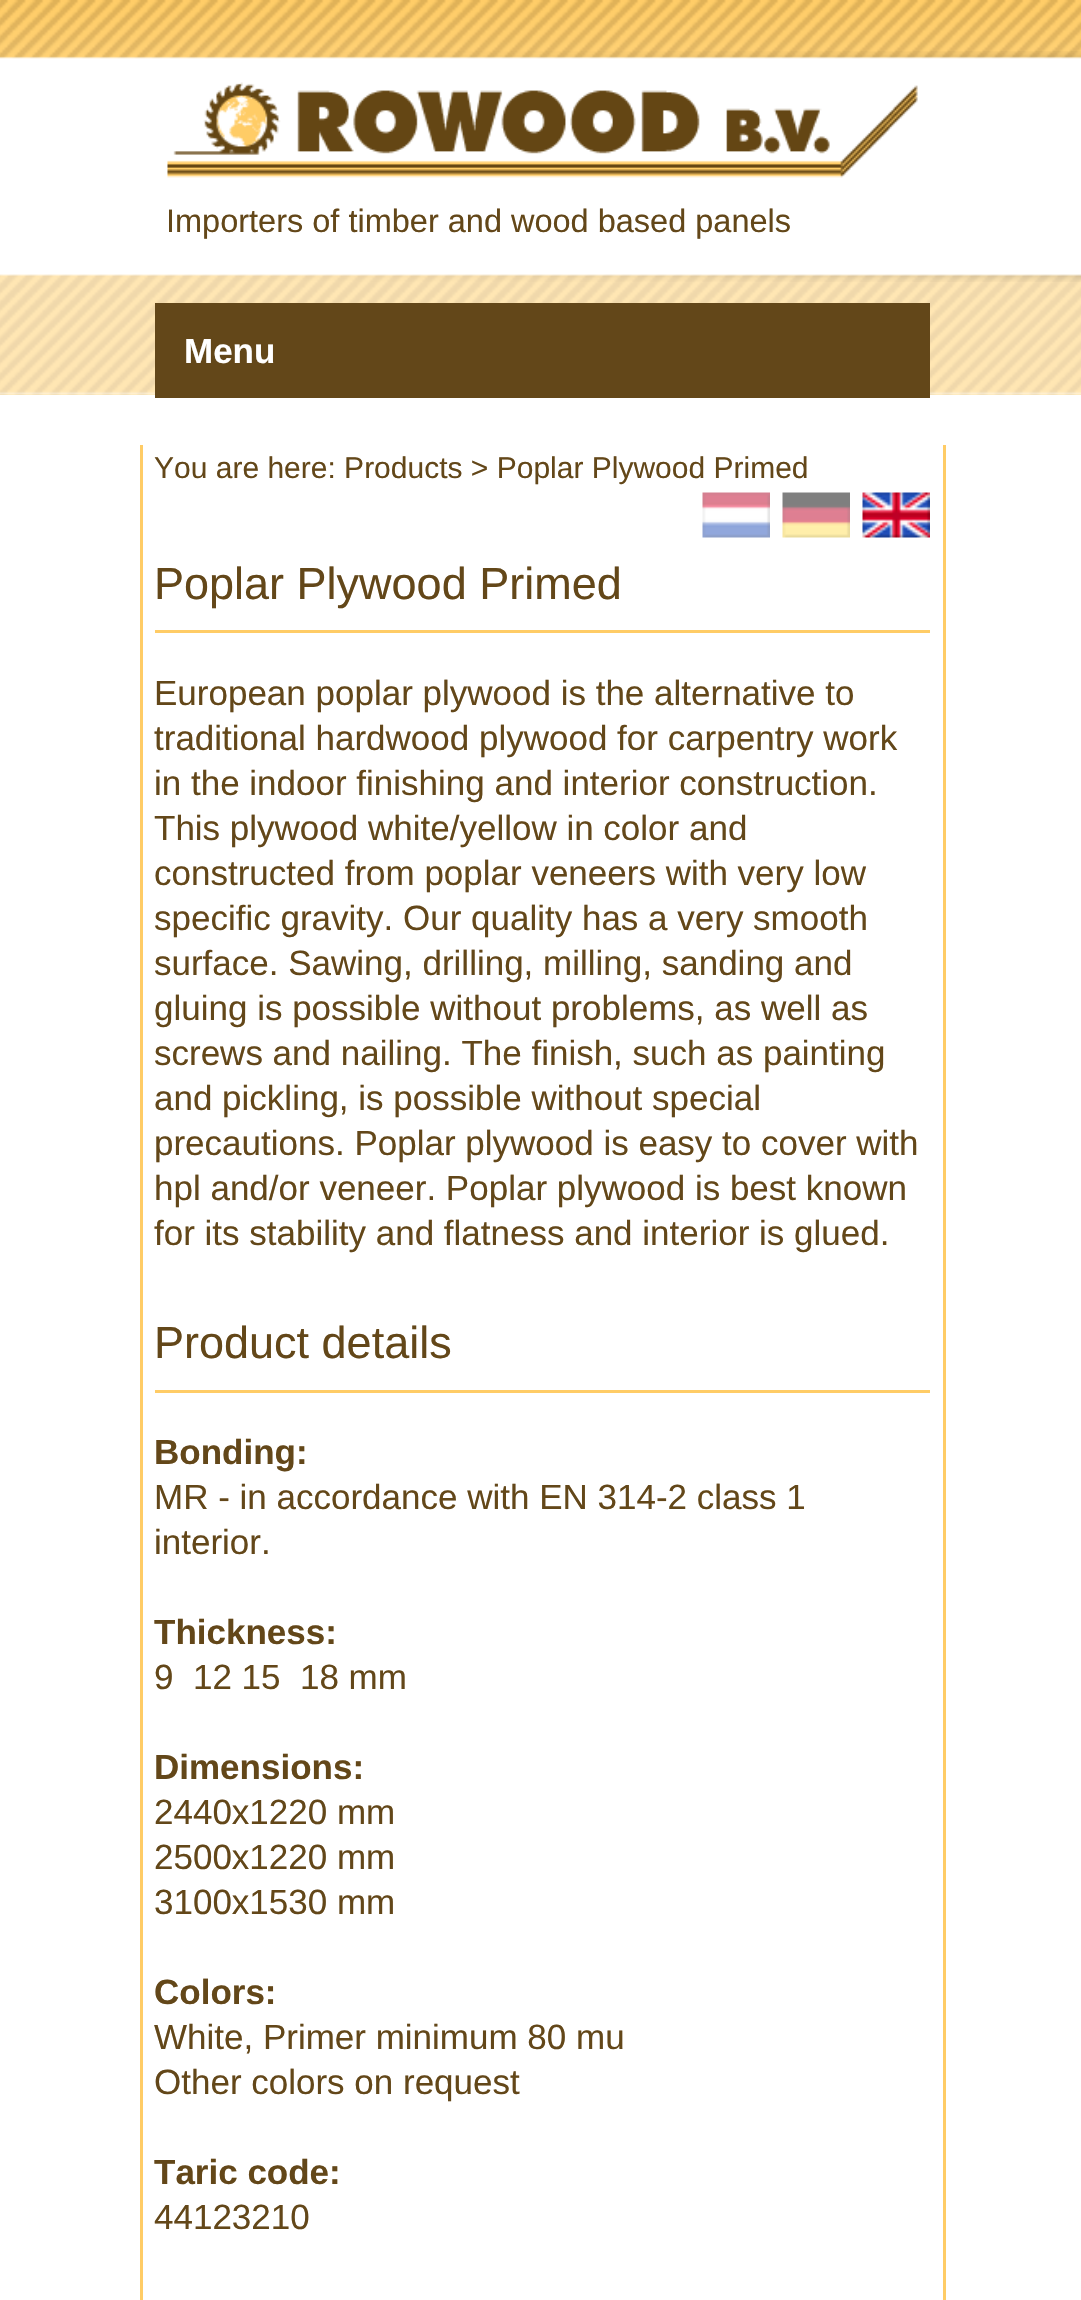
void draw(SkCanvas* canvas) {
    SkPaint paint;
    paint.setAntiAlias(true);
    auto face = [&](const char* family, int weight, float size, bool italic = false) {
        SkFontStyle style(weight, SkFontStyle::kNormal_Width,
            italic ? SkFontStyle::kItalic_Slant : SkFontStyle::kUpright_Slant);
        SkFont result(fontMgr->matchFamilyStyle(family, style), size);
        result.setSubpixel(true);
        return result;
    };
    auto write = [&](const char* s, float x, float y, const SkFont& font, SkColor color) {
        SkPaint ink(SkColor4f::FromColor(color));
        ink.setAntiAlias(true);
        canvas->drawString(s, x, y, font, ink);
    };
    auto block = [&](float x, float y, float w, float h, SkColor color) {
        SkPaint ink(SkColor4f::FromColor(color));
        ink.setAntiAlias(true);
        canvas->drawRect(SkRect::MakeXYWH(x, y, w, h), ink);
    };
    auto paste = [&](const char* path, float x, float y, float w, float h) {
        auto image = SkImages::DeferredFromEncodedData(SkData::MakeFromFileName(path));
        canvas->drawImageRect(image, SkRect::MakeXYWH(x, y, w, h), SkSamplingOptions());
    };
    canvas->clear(SK_ColorWHITE);
    paste("pic1.png", 0, 0, 1081, 395);
    paste("pic2.png", 0, 51, 1081, 231);
    paste("pic3.png", 167, 82, 751, 96);
    auto kFont1 = face("Liberation Sans", 400, 32.5f);
    write("Importers of timber and wood based panels", 166, 232, kFont1, SkColorSetRGB(99, 71, 25));
    block(155, 303, 775, 95, SkColorSetRGB(99, 71, 25));
    auto kFont2 = face("Liberation Sans", 700, 35);
    write("Menu", 184, 363, kFont2, SK_ColorWHITE);
    block(943, 445, 3, 1855, SkColorSetRGB(255, 204, 102));
    block(140, 445, 3, 1855, SkColorSetRGB(255, 204, 102));
    auto kFont3 = face("Liberation Sans", 400, 30);
    write("You are here: Products > Poplar Plywood Primed", 154, 478, kFont3, SkColorSetRGB(99, 71, 25));
    paste("pic4.png", 702, 492, 68, 46);
    paste("pic5.png", 782, 492, 68, 46);
    paste("pic6.png", 862, 492, 68, 46);
    block(155, 630, 775, 3, SkColorSetRGB(255, 204, 102));
    auto kFont4 = face("Liberation Sans", 400, 45);
    write("Poplar Plywood Primed", 154, 599, kFont4, SkColorSetRGB(99, 71, 25));
    auto kFont5 = face("Liberation Sans", 400, 35);
    write("European poplar plywood is the alternative to", 154, 705, kFont5, SkColorSetRGB(99, 71, 25));
    write("traditional hardwood plywood for carpentry work", 154, 750, kFont5, SkColorSetRGB(99, 71, 25));
    write("in the indoor finishing and interior construction.", 154, 795, kFont5, SkColorSetRGB(99, 71, 25));
    write("This plywood white/yellow in color and", 154, 840, kFont5, SkColorSetRGB(99, 71, 25));
    write("constructed from poplar veneers with very low", 154, 885, kFont5, SkColorSetRGB(99, 71, 25));
    write("specific gravity. Our quality has a very smooth", 154, 930, kFont5, SkColorSetRGB(99, 71, 25));
    write("surface. Sawing, drilling, milling, sanding and", 154, 975, kFont5, SkColorSetRGB(99, 71, 25));
    write("gluing is possible without problems, as well as", 154, 1020, kFont5, SkColorSetRGB(99, 71, 25));
    write("screws and nailing. The finish, such as painting", 154, 1065, kFont5, SkColorSetRGB(99, 71, 25));
    write("and pickling, is possible without special", 154, 1110, kFont5, SkColorSetRGB(99, 71, 25));
    write("precautions. Poplar plywood is easy to cover with", 154, 1155, kFont5, SkColorSetRGB(99, 71, 25));
    write("hpl and/or veneer. Poplar plywood is best known", 154, 1200, kFont5, SkColorSetRGB(99, 71, 25));
    write("for its stability and flatness and interior is glued.", 154, 1245, kFont5, SkColorSetRGB(99, 71, 25));
    block(155, 1390, 775, 3, SkColorSetRGB(255, 204, 102));
    write("Product details", 154, 1358, kFont4, SkColorSetRGB(99, 71, 25));
    write("Bonding:", 154, 1464, kFont2, SkColorSetRGB(99, 71, 25));
    write("MR - in accordance with EN 314-2 class 1", 154, 1509, kFont5, SkColorSetRGB(99, 71, 25));
    write("interior.", 154, 1554, kFont5, SkColorSetRGB(99, 71, 25));
    write("Thickness:", 154, 1644, kFont2, SkColorSetRGB(99, 71, 25));
    write("9  12 15  18 mm", 154, 1689, kFont5, SkColorSetRGB(99, 71, 25));
    write("Dimensions:", 154, 1779, kFont2, SkColorSetRGB(99, 71, 25));
    write("2440x1220 mm", 154, 1824, kFont5, SkColorSetRGB(99, 71, 25));
    write("2500x1220 mm", 154, 1869, kFont5, SkColorSetRGB(99, 71, 25));
    write("3100x1530 mm", 154, 1914, kFont5, SkColorSetRGB(99, 71, 25));
    write("Colors:", 154, 2004, kFont2, SkColorSetRGB(99, 71, 25));
    write("White, Primer minimum 80 mu", 154, 2049, kFont5, SkColorSetRGB(99, 71, 25));
    write("Other colors on request", 154, 2094, kFont5, SkColorSetRGB(99, 71, 25));
    write("Taric code:", 154, 2184, kFont2, SkColorSetRGB(99, 71, 25));
    write("44123210", 154, 2229, kFont5, SkColorSetRGB(99, 71, 25));
}
